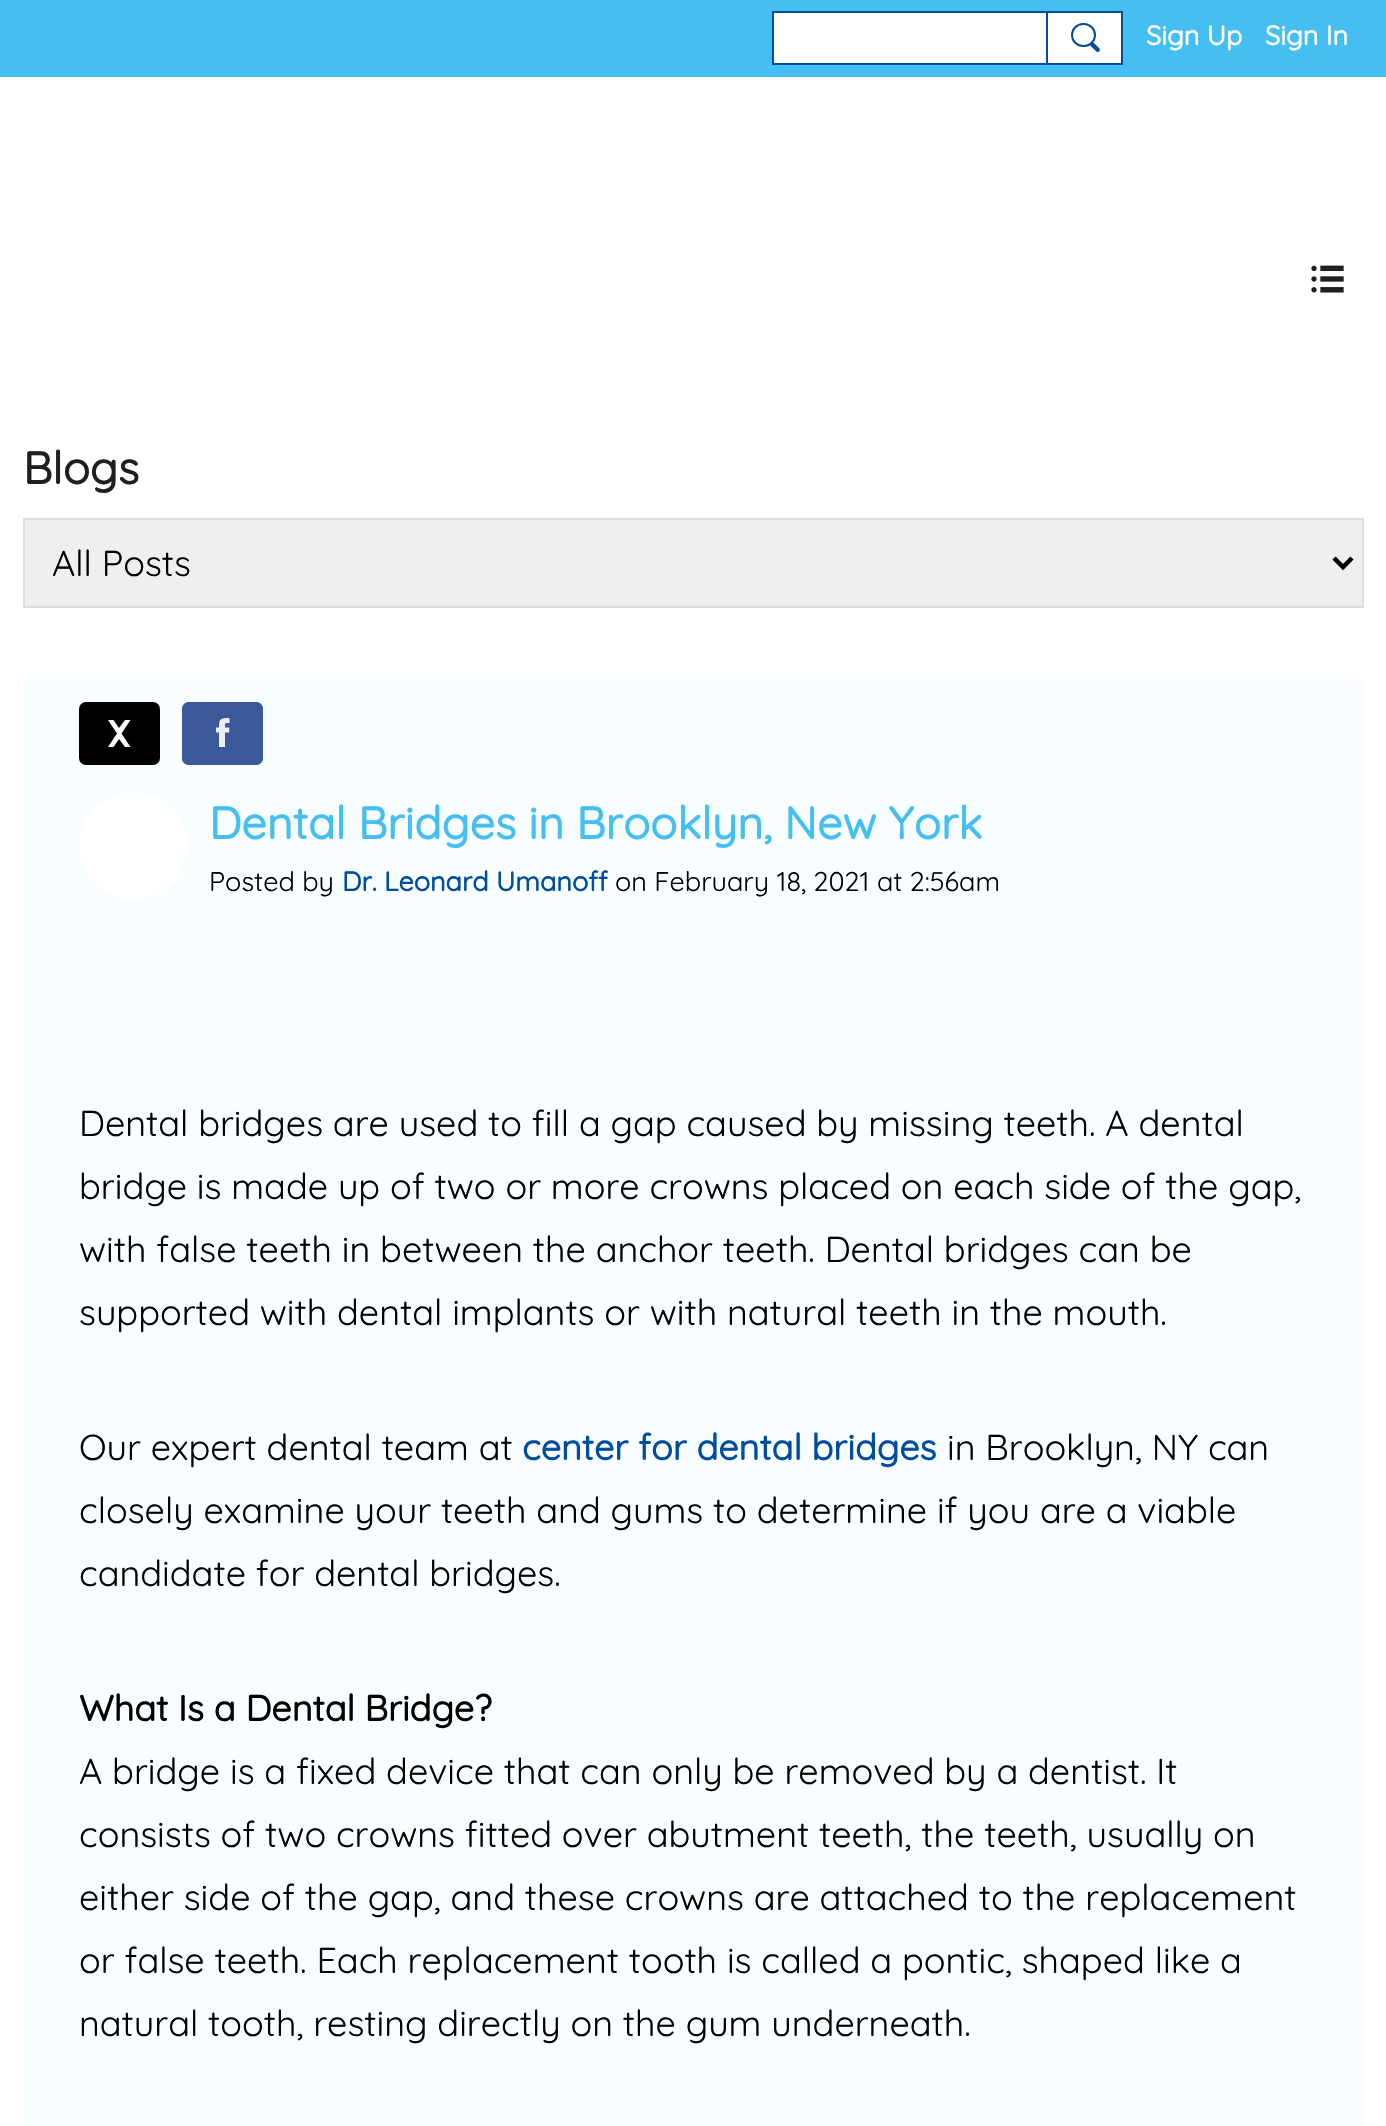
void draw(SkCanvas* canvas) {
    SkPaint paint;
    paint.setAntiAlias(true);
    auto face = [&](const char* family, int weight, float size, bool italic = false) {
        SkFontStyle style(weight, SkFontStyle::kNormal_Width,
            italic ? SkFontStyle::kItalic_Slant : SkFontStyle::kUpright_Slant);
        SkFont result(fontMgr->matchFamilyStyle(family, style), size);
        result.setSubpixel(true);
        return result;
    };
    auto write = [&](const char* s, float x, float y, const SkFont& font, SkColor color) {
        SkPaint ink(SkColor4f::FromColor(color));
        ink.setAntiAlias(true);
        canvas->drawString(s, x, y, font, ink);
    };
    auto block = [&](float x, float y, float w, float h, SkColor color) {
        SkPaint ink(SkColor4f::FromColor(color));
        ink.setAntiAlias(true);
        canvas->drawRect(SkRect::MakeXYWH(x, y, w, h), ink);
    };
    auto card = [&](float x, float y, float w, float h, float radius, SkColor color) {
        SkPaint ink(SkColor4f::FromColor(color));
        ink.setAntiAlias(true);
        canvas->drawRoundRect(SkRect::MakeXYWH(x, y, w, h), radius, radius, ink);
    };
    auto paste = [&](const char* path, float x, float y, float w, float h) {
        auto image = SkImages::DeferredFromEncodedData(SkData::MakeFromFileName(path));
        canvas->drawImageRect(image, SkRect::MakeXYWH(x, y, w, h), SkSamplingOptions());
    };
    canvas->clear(SK_ColorWHITE);
    block(0, 0, 1386, 77, SkColorSetRGB(69, 191, 242));
    block(774, 13, 272, 50, SK_ColorWHITE);
    paint.setStyle(SkPaint::kStroke_Style);
    paint.setStrokeWidth(2);
    paint.setColor(SkColorSetRGB(0, 77, 159));
    canvas->drawRect(SkRect::MakeXYWH(773, 12, 275, 52), paint);
    paint.setStyle(SkPaint::kFill_Style);
    paint.setColor(SK_ColorWHITE);
    canvas->drawRect(SkRect::MakeXYWH(1047, 12, 75, 52), paint);
    paint.setStyle(SkPaint::kStroke_Style);
    paint.setColor(SkColorSetRGB(0, 77, 159));
    canvas->drawRect(SkRect::MakeXYWH(1047, 12, 75, 52), paint);
    canvas->drawRoundRect(SkRect::MakeXYWH(1072, 24, 23, 22), 11, 11, paint);
    paint.setStyle(SkPaint::kFill_Style);
    canvas->drawPath(SkPathBuilder().moveTo(1094.5f, 43.5f).lineTo(1099.5f, 48.5f).cubicTo(1100, 49, 1100, 50, 1099.5f, 51).cubicTo(1098, 53.5f, 1095.5f, 51, 1094.5f, 49.5f).lineTo(1091, 46.5f).cubicTo(1089, 44.5f, 1092, 41, 1094.5f, 43.5f).close().detach(), paint);
    auto kFont1 = face("Quicksand", 700, 27);
    write("Sign Up", 1146, 45, kFont1, SK_ColorWHITE);
    write("Sign In", 1265, 45, kFont1, SK_ColorWHITE);
    paste("pic1.png", 1311, 265, 33, 28);
    auto kFont2 = face("Quicksand", 700, 45);
    write("Blogs", 23, 484, kFont2, SkColorSetRGB(31, 31, 31));
    paint.setColor(SkColorSetRGB(239, 239, 239));
    canvas->drawRect(SkRect::MakeXYWH(24, 519, 1339, 88), paint);
    paint.setStyle(SkPaint::kStroke_Style);
    paint.setColor(SkColorSetRGB(221, 221, 221));
    canvas->drawRect(SkRect::MakeXYWH(24, 519, 1339, 88), paint);
    paint.setStrokeWidth(4.5f);
    paint.setColor(SK_ColorBLACK);
    canvas->drawPath(SkPathBuilder().moveTo(1334, 558).lineTo(1343, 567).lineTo(1352, 558).detach(), paint);
    auto kFont3 = face("Quicksand", 300, 36);
    write("All Posts", 52, 576, kFont3, SK_ColorBLACK);
    block(23, 680, 1341, 1446, SkColorSetRGB(248, 253, 255));
    card(79, 702, 81, 63, 7, SK_ColorBLACK);
    paint.setStyle(SkPaint::kFill_Style);
    paint.setColor(SK_ColorWHITE);
    canvas->drawPath(SkPathBuilder(SkPathFillType::kEvenOdd).moveTo(108, 720).lineTo(117, 733.5f).lineTo(108, 747).lineTo(113.5f, 747).lineTo(119, 739).lineTo(125, 747).lineTo(130.5f, 747).lineTo(121.5f, 733.5f).lineTo(130.5f, 720).lineTo(125, 720).lineTo(119, 728).lineTo(113.5f, 720).close().detach(), paint);
    card(182, 702, 81, 63, 7, SkColorSetRGB(59, 89, 152));
    card(182, 702, 81, 63, 7, SkColorSetARGB(230, 59, 89, 152));
    paint.setColor(SkColorSetRGB(235, 238, 245));
    canvas->drawPath(SkPathBuilder().moveTo(225, 747).lineTo(225, 732.5f).lineTo(229, 732.5f).lineTo(229.5f, 727.5f).lineTo(225, 727.5f).cubicTo(225, 722.5f, 225, 723, 229.5f, 723).lineTo(229.5f, 718).cubicTo(221, 718, 219, 718, 219, 727.5f).lineTo(216, 727.5f).lineTo(216, 732.5f).lineTo(219, 732.5f).lineTo(219, 747).close().detach(), paint);
    paint.setColor(SK_ColorWHITE);
    canvas->drawCircle(133, 846, 54, paint);
    write("Dental Bridges in Brooklyn, New York", 209, 839, kFont2, SkColorSetRGB(69, 191, 242));
    auto kFont4 = face("Quicksand", 300, 27);
    write("Posted by", 209, 891, kFont4, SK_ColorBLACK);
    write("Dr. Leonard Umanoff", 342, 891, kFont1, SkColorSetRGB(0, 77, 159));
    write("on February 18, 2021 at 2:56am", 615, 891, kFont4, SK_ColorBLACK);
    write("Dental bridges are used to fill a gap caused by missing teeth. A dental", 79, 1136, kFont3, SK_ColorBLACK);
    write("bridge is made up of two or more crowns placed on each side of the gap,", 79, 1199, kFont3, SK_ColorBLACK);
    write("with false teeth in between the anchor teeth. Dental bridges can be", 79, 1262, kFont3, SK_ColorBLACK);
    write("supported with dental implants or with natural teeth in the mouth.", 79, 1325, kFont3, SK_ColorBLACK);
    write("Our expert dental team at", 79, 1460, kFont3, SK_ColorBLACK);
    auto kFont5 = face("Quicksand", 700, 36);
    write("center for dental bridges", 522, 1460, kFont5, SkColorSetRGB(0, 77, 159));
    write("in Brooklyn, NY can", 947, 1460, kFont3, SK_ColorBLACK);
    write("closely examine your teeth and gums to determine if you are a viable", 79, 1523, kFont3, SK_ColorBLACK);
    write("candidate for dental bridges.", 79, 1586, kFont3, SK_ColorBLACK);
    write("What Is a Dental Bridge?", 79, 1721, kFont5, SK_ColorBLACK);
    write("A bridge is a fixed device that can only be removed by a dentist. It", 79, 1784, kFont3, SK_ColorBLACK);
    write("consists of two crowns fitted over abutment teeth, the teeth, usually on", 79, 1847, kFont3, SK_ColorBLACK);
    write("either side of the gap, and these crowns are attached to the replacement", 79, 1910, kFont3, SK_ColorBLACK);
    write("or false teeth. Each replacement tooth is called a pontic, shaped like a", 79, 1973, kFont3, SK_ColorBLACK);
    write("natural tooth, resting directly on the gum underneath.", 79, 2036, kFont3, SK_ColorBLACK);
}
